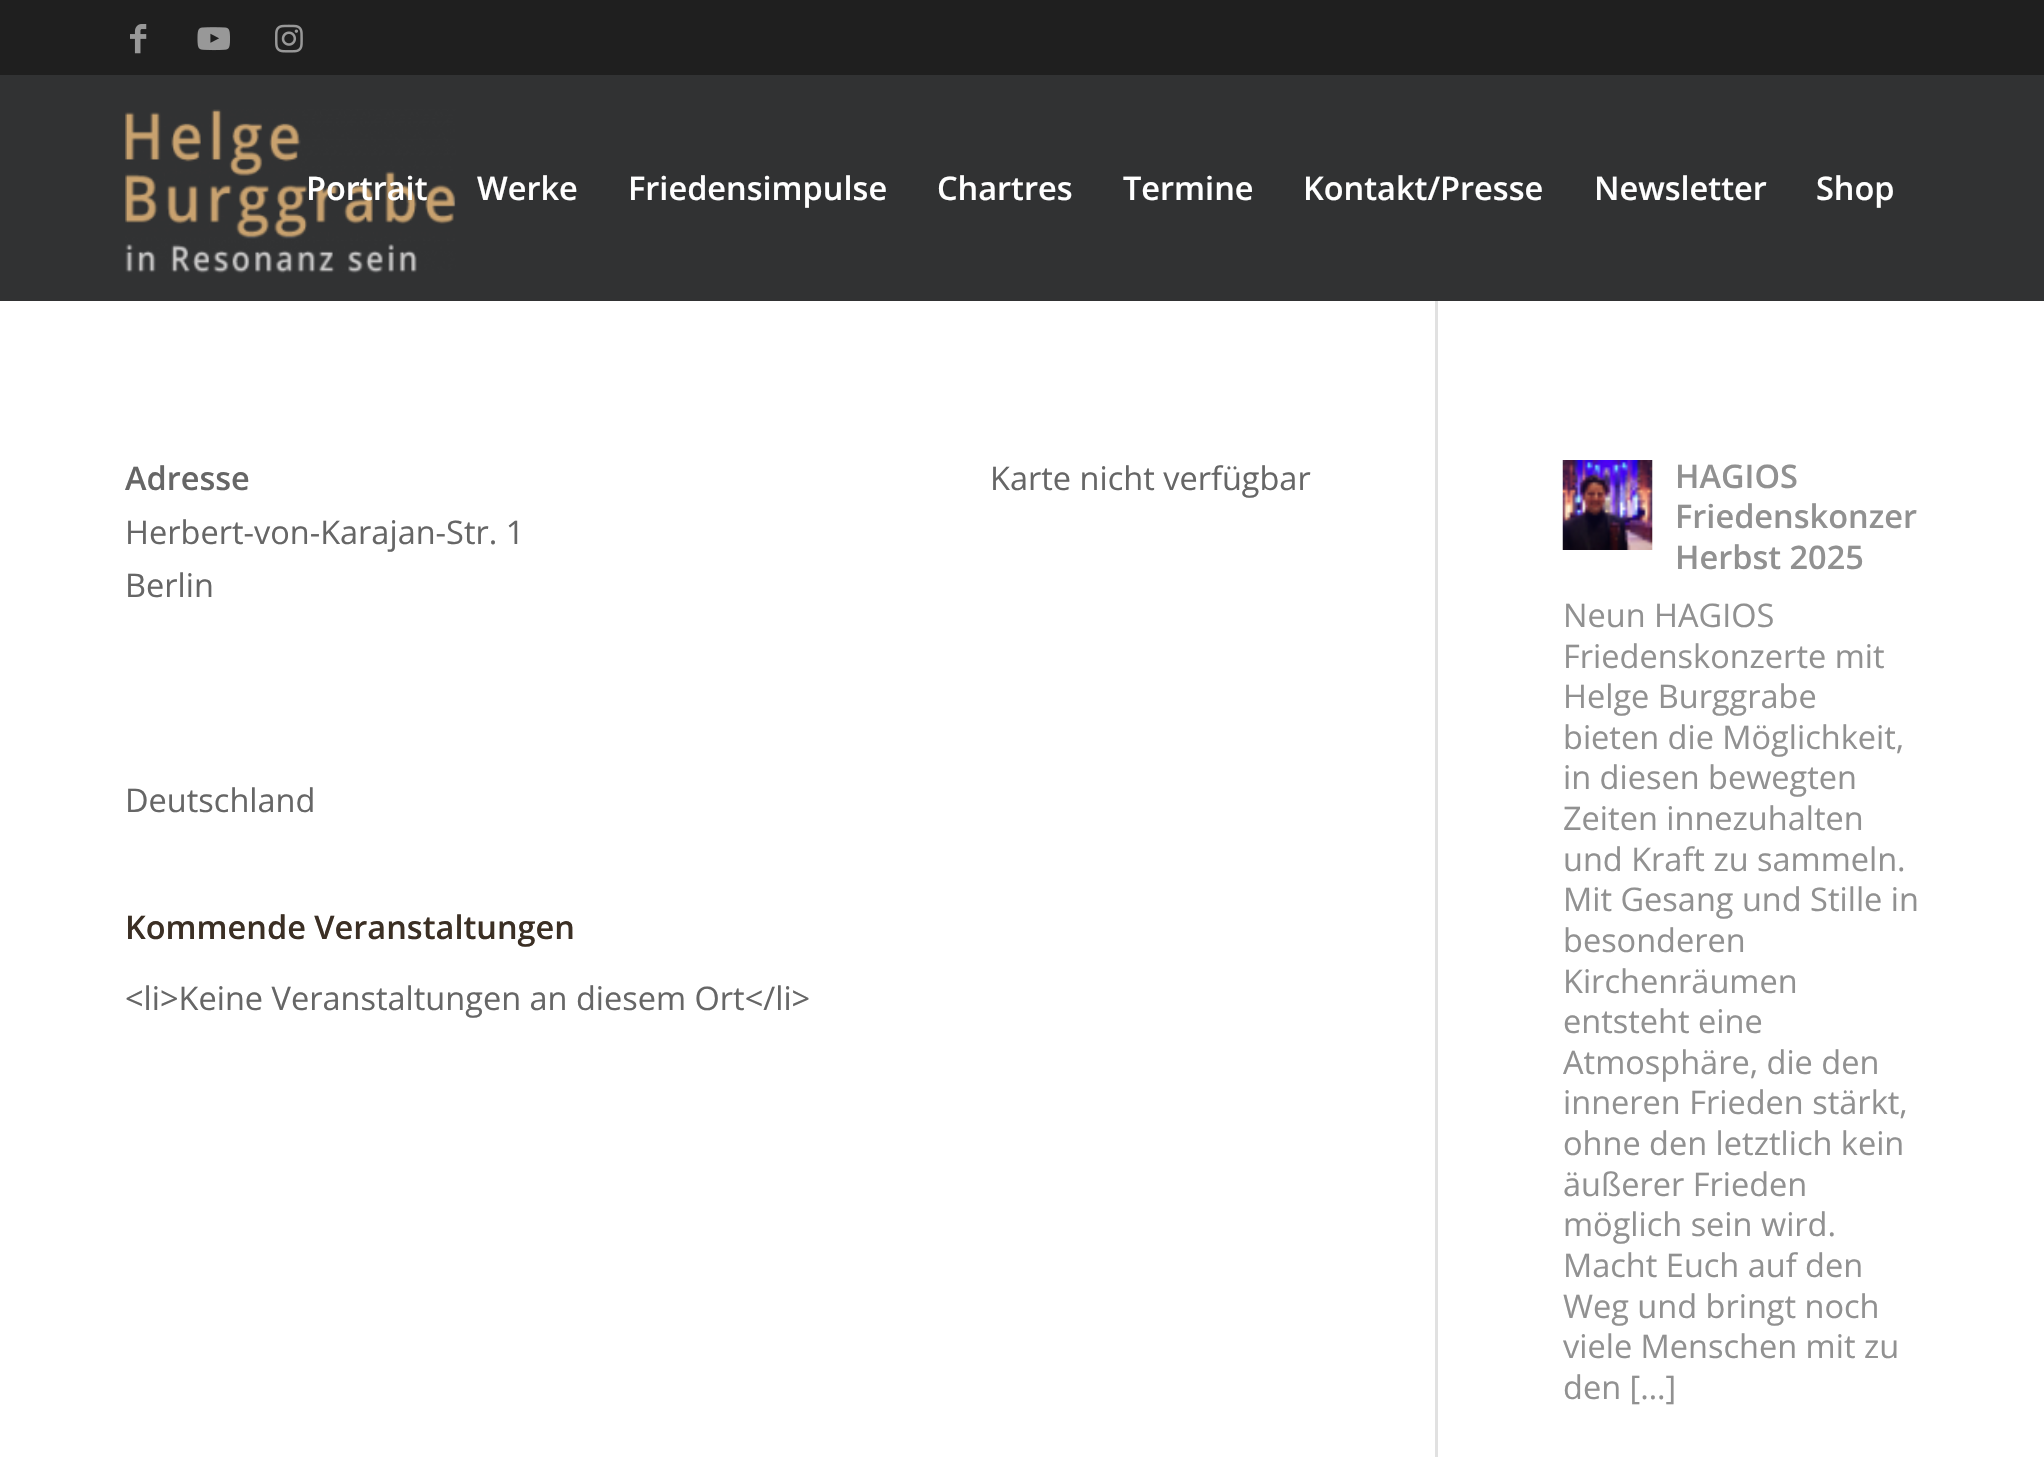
void draw(SkCanvas* canvas) {
    SkPaint paint;
    paint.setAntiAlias(true);
    auto face = [&](const char* family, int weight, float size, bool italic = false) {
        SkFontStyle style(weight, SkFontStyle::kNormal_Width,
            italic ? SkFontStyle::kItalic_Slant : SkFontStyle::kUpright_Slant);
        SkFont result(fontMgr->matchFamilyStyle(family, style), size);
        result.setSubpixel(true);
        return result;
    };
    auto write = [&](const char* s, float x, float y, const SkFont& font, SkColor color) {
        SkPaint ink(SkColor4f::FromColor(color));
        ink.setAntiAlias(true);
        canvas->drawString(s, x, y, font, ink);
    };
    auto block = [&](float x, float y, float w, float h, SkColor color) {
        SkPaint ink(SkColor4f::FromColor(color));
        ink.setAntiAlias(true);
        canvas->drawRect(SkRect::MakeXYWH(x, y, w, h), ink);
    };
    auto paste = [&](const char* path, float x, float y, float w, float h) {
        auto image = SkImages::DeferredFromEncodedData(SkData::MakeFromFileName(path));
        canvas->drawImageRect(image, SkRect::MakeXYWH(x, y, w, h), SkSamplingOptions());
    };
    canvas->clear(SK_ColorWHITE);
    block(0, 0, 2044, 75, SkColorSetRGB(31, 31, 31));
    paste("pic1.png", 130, 24, 17, 30);
    paste("pic2.png", 197, 27, 33, 24);
    paste("pic3.png", 275, 24, 28, 29);
    block(1435, 300, 3, 1157, SkColorSetRGB(225, 225, 225));
    block(0, 75, 2044, 226, SkColorSetRGB(49, 50, 51));
    paste("pic4.png", 125, 109, 331, 165);
    auto kFont1 = face("Open Sans", 600, 32.5f);
    write("Portrait", 306, 200, kFont1, SK_ColorWHITE);
    write("Werke", 477, 200, kFont1, SK_ColorWHITE);
    write("Friedensimpulse", 628, 200, kFont1, SK_ColorWHITE);
    write("Chartres", 937, 200, kFont1, SK_ColorWHITE);
    write("Termine", 1123, 200, kFont1, SK_ColorWHITE);
    write("Kontakt/Presse", 1303, 200, kFont1, SK_ColorWHITE);
    write("Newsletter", 1594, 200, kFont1, SK_ColorWHITE);
    write("Shop", 1816, 200, kFont1, SK_ColorWHITE);
    write("Adresse", 125, 490, kFont1, SkColorSetRGB(102, 102, 102));
    auto kFont2 = face("Open Sans", 400, 32.5f);
    write("Herbert-von-Karajan-Str. 1", 125, 544, kFont2, SkColorSetRGB(102, 102, 102));
    write("Berlin", 125, 597, kFont2, SkColorSetRGB(102, 102, 102));
    write("Deutschland", 125, 812, kFont2, SkColorSetRGB(102, 102, 102));
    write("Karte nicht verfügbar", 990, 490, kFont2, SkColorSetRGB(102, 102, 102));
    write("Kommende Veranstaltungen", 125, 939, kFont1, SkColorSetRGB(59, 47, 36));
    write("<li>Keine Veranstaltungen an diesem Ort</li>", 125, 1010, kFont2, SkColorSetRGB(102, 102, 102));
    block(1652, 460, 1, 90, SkColorSetRGB(252, 252, 252));
    paste("pic5.png", 1562, 460, 91, 90);
    write("HAGIOS", 1675, 488, kFont1, SkColorSetRGB(145, 145, 145));
    write("Friedenskonzer", 1675, 528, kFont1, SkColorSetRGB(145, 145, 145));
    write("Herbst 2025", 1675, 569, kFont1, SkColorSetRGB(145, 145, 145));
    write("Neun HAGIOS", 1563, 627, kFont2, SkColorSetRGB(145, 145, 145));
    write("Friedenskonzerte mit", 1563, 668, kFont2, SkColorSetRGB(145, 145, 145));
    write("Helge Burggrabe", 1563, 708, kFont2, SkColorSetRGB(145, 145, 145));
    write("bieten die Möglichkeit,", 1563, 749, kFont2, SkColorSetRGB(145, 145, 145));
    write("in diesen bewegten", 1563, 789, kFont2, SkColorSetRGB(145, 145, 145));
    write("Zeiten innezuhalten", 1563, 830, kFont2, SkColorSetRGB(145, 145, 145));
    write("und Kraft zu sammeln.", 1563, 871, kFont2, SkColorSetRGB(145, 145, 145));
    write("Mit Gesang und Stille in", 1563, 911, kFont2, SkColorSetRGB(145, 145, 145));
    write("besonderen", 1563, 952, kFont2, SkColorSetRGB(145, 145, 145));
    write("Kirchenräumen", 1563, 993, kFont2, SkColorSetRGB(145, 145, 145));
    write("entsteht eine", 1563, 1033, kFont2, SkColorSetRGB(145, 145, 145));
    write("Atmosphäre, die den", 1563, 1074, kFont2, SkColorSetRGB(145, 145, 145));
    write("inneren Frieden stärkt,", 1563, 1114, kFont2, SkColorSetRGB(145, 145, 145));
    write("ohne den letztlich kein", 1563, 1155, kFont2, SkColorSetRGB(145, 145, 145));
    write("äußerer Frieden", 1563, 1196, kFont2, SkColorSetRGB(145, 145, 145));
    write("möglich sein wird.", 1563, 1236, kFont2, SkColorSetRGB(145, 145, 145));
    write("Macht Euch auf den", 1563, 1277, kFont2, SkColorSetRGB(145, 145, 145));
    write("Weg und bringt noch", 1563, 1318, kFont2, SkColorSetRGB(145, 145, 145));
    write("viele Menschen mit zu", 1563, 1358, kFont2, SkColorSetRGB(145, 145, 145));
    write("den […]", 1563, 1399, kFont2, SkColorSetRGB(145, 145, 145));
}
